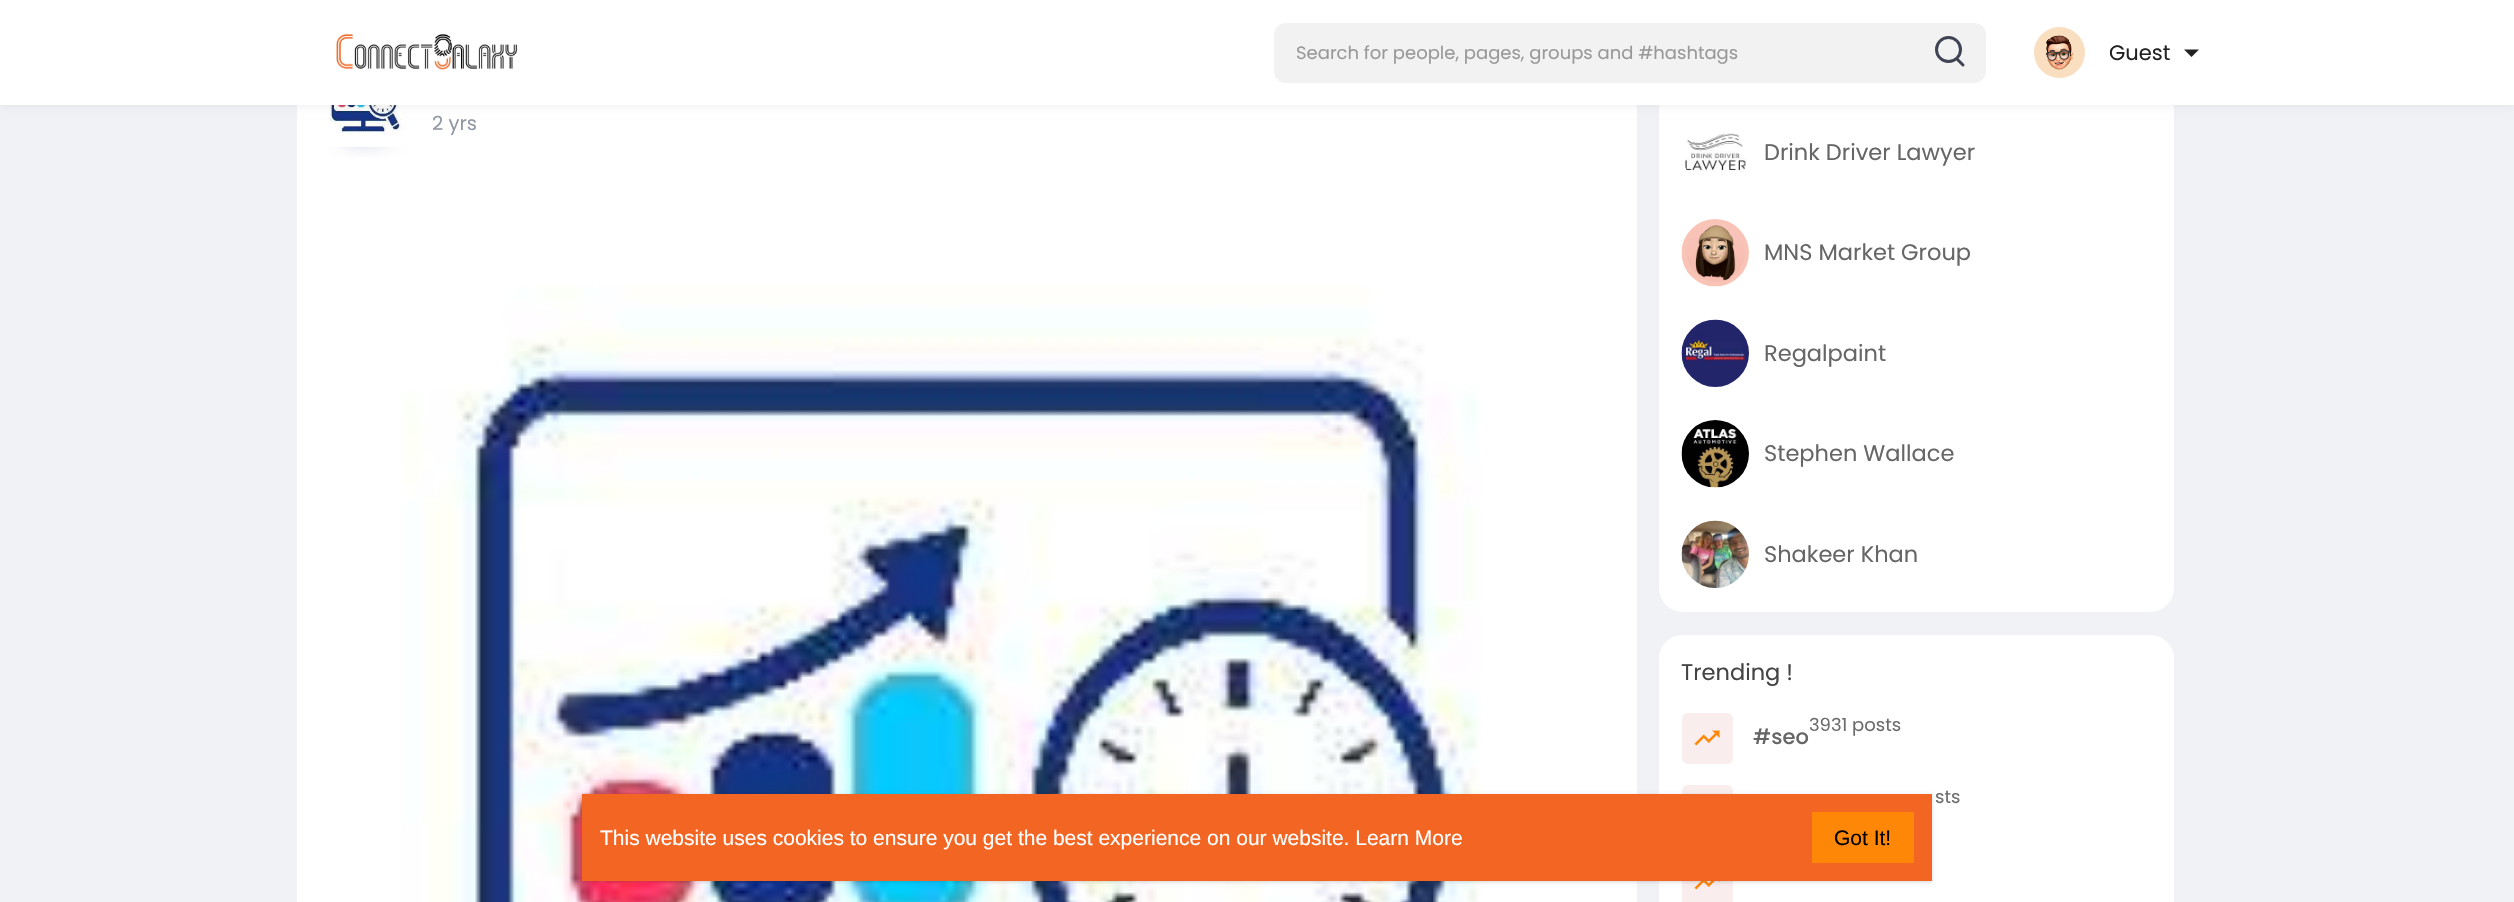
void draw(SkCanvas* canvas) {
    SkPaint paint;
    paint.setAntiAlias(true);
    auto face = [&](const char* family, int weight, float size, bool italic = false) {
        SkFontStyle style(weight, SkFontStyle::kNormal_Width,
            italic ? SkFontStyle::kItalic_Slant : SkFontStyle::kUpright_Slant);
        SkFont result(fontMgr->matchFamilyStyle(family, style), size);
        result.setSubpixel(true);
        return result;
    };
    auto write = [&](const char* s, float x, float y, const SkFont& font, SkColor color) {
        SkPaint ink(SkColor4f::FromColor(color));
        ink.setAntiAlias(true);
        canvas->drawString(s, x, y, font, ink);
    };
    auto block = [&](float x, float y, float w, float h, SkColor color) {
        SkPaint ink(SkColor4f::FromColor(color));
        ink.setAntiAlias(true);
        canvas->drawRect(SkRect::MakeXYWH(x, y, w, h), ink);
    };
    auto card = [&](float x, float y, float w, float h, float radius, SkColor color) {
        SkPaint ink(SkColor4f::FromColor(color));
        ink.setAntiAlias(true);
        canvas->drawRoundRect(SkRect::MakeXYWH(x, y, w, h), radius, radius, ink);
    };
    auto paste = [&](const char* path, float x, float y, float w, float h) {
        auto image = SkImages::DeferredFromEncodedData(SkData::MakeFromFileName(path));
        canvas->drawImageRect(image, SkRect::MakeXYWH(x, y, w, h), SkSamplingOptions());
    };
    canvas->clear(SkColorSetRGB(240, 242, 245));
    block(297, 105, 1340, 797, SK_ColorWHITE);
    paste("pic4.png", 321, 140, 88, 17);
    paste("pic3.png", 321, 105, 88, 42);
    card(1659, 27, 515, 585, 24, SK_ColorWHITE);
    paint.setColor(SkColorSetARGB(13, 0, 0, 0));
    paint.setMaskFilter(SkMaskFilter::MakeBlur(kNormal_SkBlurStyle, 4.5f));
    canvas->drawRect(SkRect::MakeXYWH(0, 2, 2514, 105), paint);
    paint.setMaskFilter(nullptr);
    block(0, 0, 2514, 105, SK_ColorWHITE);
    paste("pic1.png", 336, 34, 182, 36);
    card(1274, 23, 712, 60, 12, SkColorSetRGB(242, 242, 242));
    auto kFont1 = face("Poppins", 400, 18);
    write("Search for people, pages, groups and #hashtags", 1296, 59, kFont1, SkColorSetRGB(153, 153, 153));
    paint.setStyle(SkPaint::kStroke_Style);
    paint.setStrokeWidth(3);
    paint.setColor(SkColorSetRGB(63, 67, 84));
    canvas->drawCircle(1948.5f, 49.5f, 12, paint);
    paint.setStrokeCap(SkPaint::kRound_Cap);
    canvas->drawPath(SkPathBuilder().moveTo(1957, 59).lineTo(1963, 65).detach(), paint);
    paste("pic2.png", 2034, 27, 51, 51);
    auto kFont2 = face("Poppins", 400, 21);
    write("Guest", 2109, 60, kFont2, SkColorSetRGB(34, 34, 34));
    paint.setStyle(SkPaint::kFill_Style);
    paint.setColor(SkColorSetRGB(34, 34, 34));
    canvas->drawPath(SkPathBuilder().moveTo(2184, 49.5f).lineTo(2199, 49.5f).lineTo(2191.5f, 57).close().detach(), paint);
    auto kFont3 = face("Poppins", 400, 19.5f);
    write("2 yrs", 432, 130, kFont3, SkColorSetRGB(145, 151, 163));
    paste("pic5.png", 401, 285, 1080, 617);
    paste("pic6.png", 1685, 133, 61, 39);
    auto kFont4 = face("Poppins", 400, 22.5f);
    write("Drink Driver Lawyer", 1764, 160, kFont4, SkColorSetRGB(102, 102, 102));
    paste("pic7.png", 1681, 219, 68, 68);
    write("MNS Market Group", 1764, 260, kFont4, SkColorSetRGB(102, 102, 102));
    paste("pic8.png", 1681, 319, 68, 68);
    write("Regalpaint", 1764, 361, kFont4, SkColorSetRGB(102, 102, 102));
    paste("pic9.png", 1681, 420, 68, 68);
    write("Stephen Wallace", 1764, 461, kFont4, SkColorSetRGB(102, 102, 102));
    paste("pic10.png", 1681, 520, 68, 68);
    write("Shakeer Khan", 1764, 562, kFont4, SkColorSetRGB(102, 102, 102));
    card(1659, 635, 515, 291, 24, SK_ColorWHITE);
    paint.setColor(SK_ColorWHITE);
    canvas->drawPath(SkPathBuilder().moveTo(1683, 635).lineTo(2150, 635).cubicTo(2163.5f, 635, 2174, 645.5f, 2174, 659).lineTo(2174, 710).lineTo(1659, 710).lineTo(1659, 659).cubicTo(1659, 645.5f, 1669.5f, 635, 1683, 635).close().detach(), paint);
    write("Trending !", 1681, 680, kFont4, SkColorSetRGB(68, 68, 68));
    card(1682, 713, 51, 51, 6, SkColorSetRGB(249, 237, 238));
    auto kFont5 = face("Poppins", 500, 21);
    write("#seo", 1753, 744, kFont5, SkColorSetRGB(102, 102, 102));
    paste("pic11.png", 1694, 730, 26, 16);
    write("3931 posts", 1809, 731, kFont1, SkColorSetRGB(108, 108, 108));
    card(1682, 785, 51, 51, 6, SkColorSetRGB(249, 237, 238));
    write("sts", 1935, 803, kFont1, SkColorSetRGB(108, 108, 108));
    block(1682, 881, 51, 21, SkColorSetRGB(249, 237, 238));
    paste("pic12.png", 1694, 881, 26, 9);
    paint.setColor(SkColorSetARGB(15, 0, 0, 0));
    paint.setMaskFilter(SkMaskFilter::MakeBlur(kNormal_SkBlurStyle, 1.5f));
    canvas->drawRect(SkRect::MakeXYWH(582, 795, 1350, 87), paint);
    paint.setMaskFilter(nullptr);
    paint.setColor(SkColorSetARGB(26, 0, 0, 0));
    paint.setMaskFilter(SkMaskFilter::MakeBlur(kNormal_SkBlurStyle, 2));
    canvas->drawRect(SkRect::MakeXYWH(582, 795, 1350, 87), paint);
    paint.setMaskFilter(nullptr);
    block(582, 794, 1350, 87, SkColorSetRGB(242, 101, 34));
    auto kFont6 = face("Liberation Sans", 400, 21);
    write("This website uses cookies to ensure you get the best experience on our website. Learn More", 600, 845, kFont6, SK_ColorWHITE);
    block(1812, 812, 102, 51, SkColorSetRGB(254, 135, 8));
    write("Got It!", 1834, 845, kFont6, SK_ColorBLACK);
}
